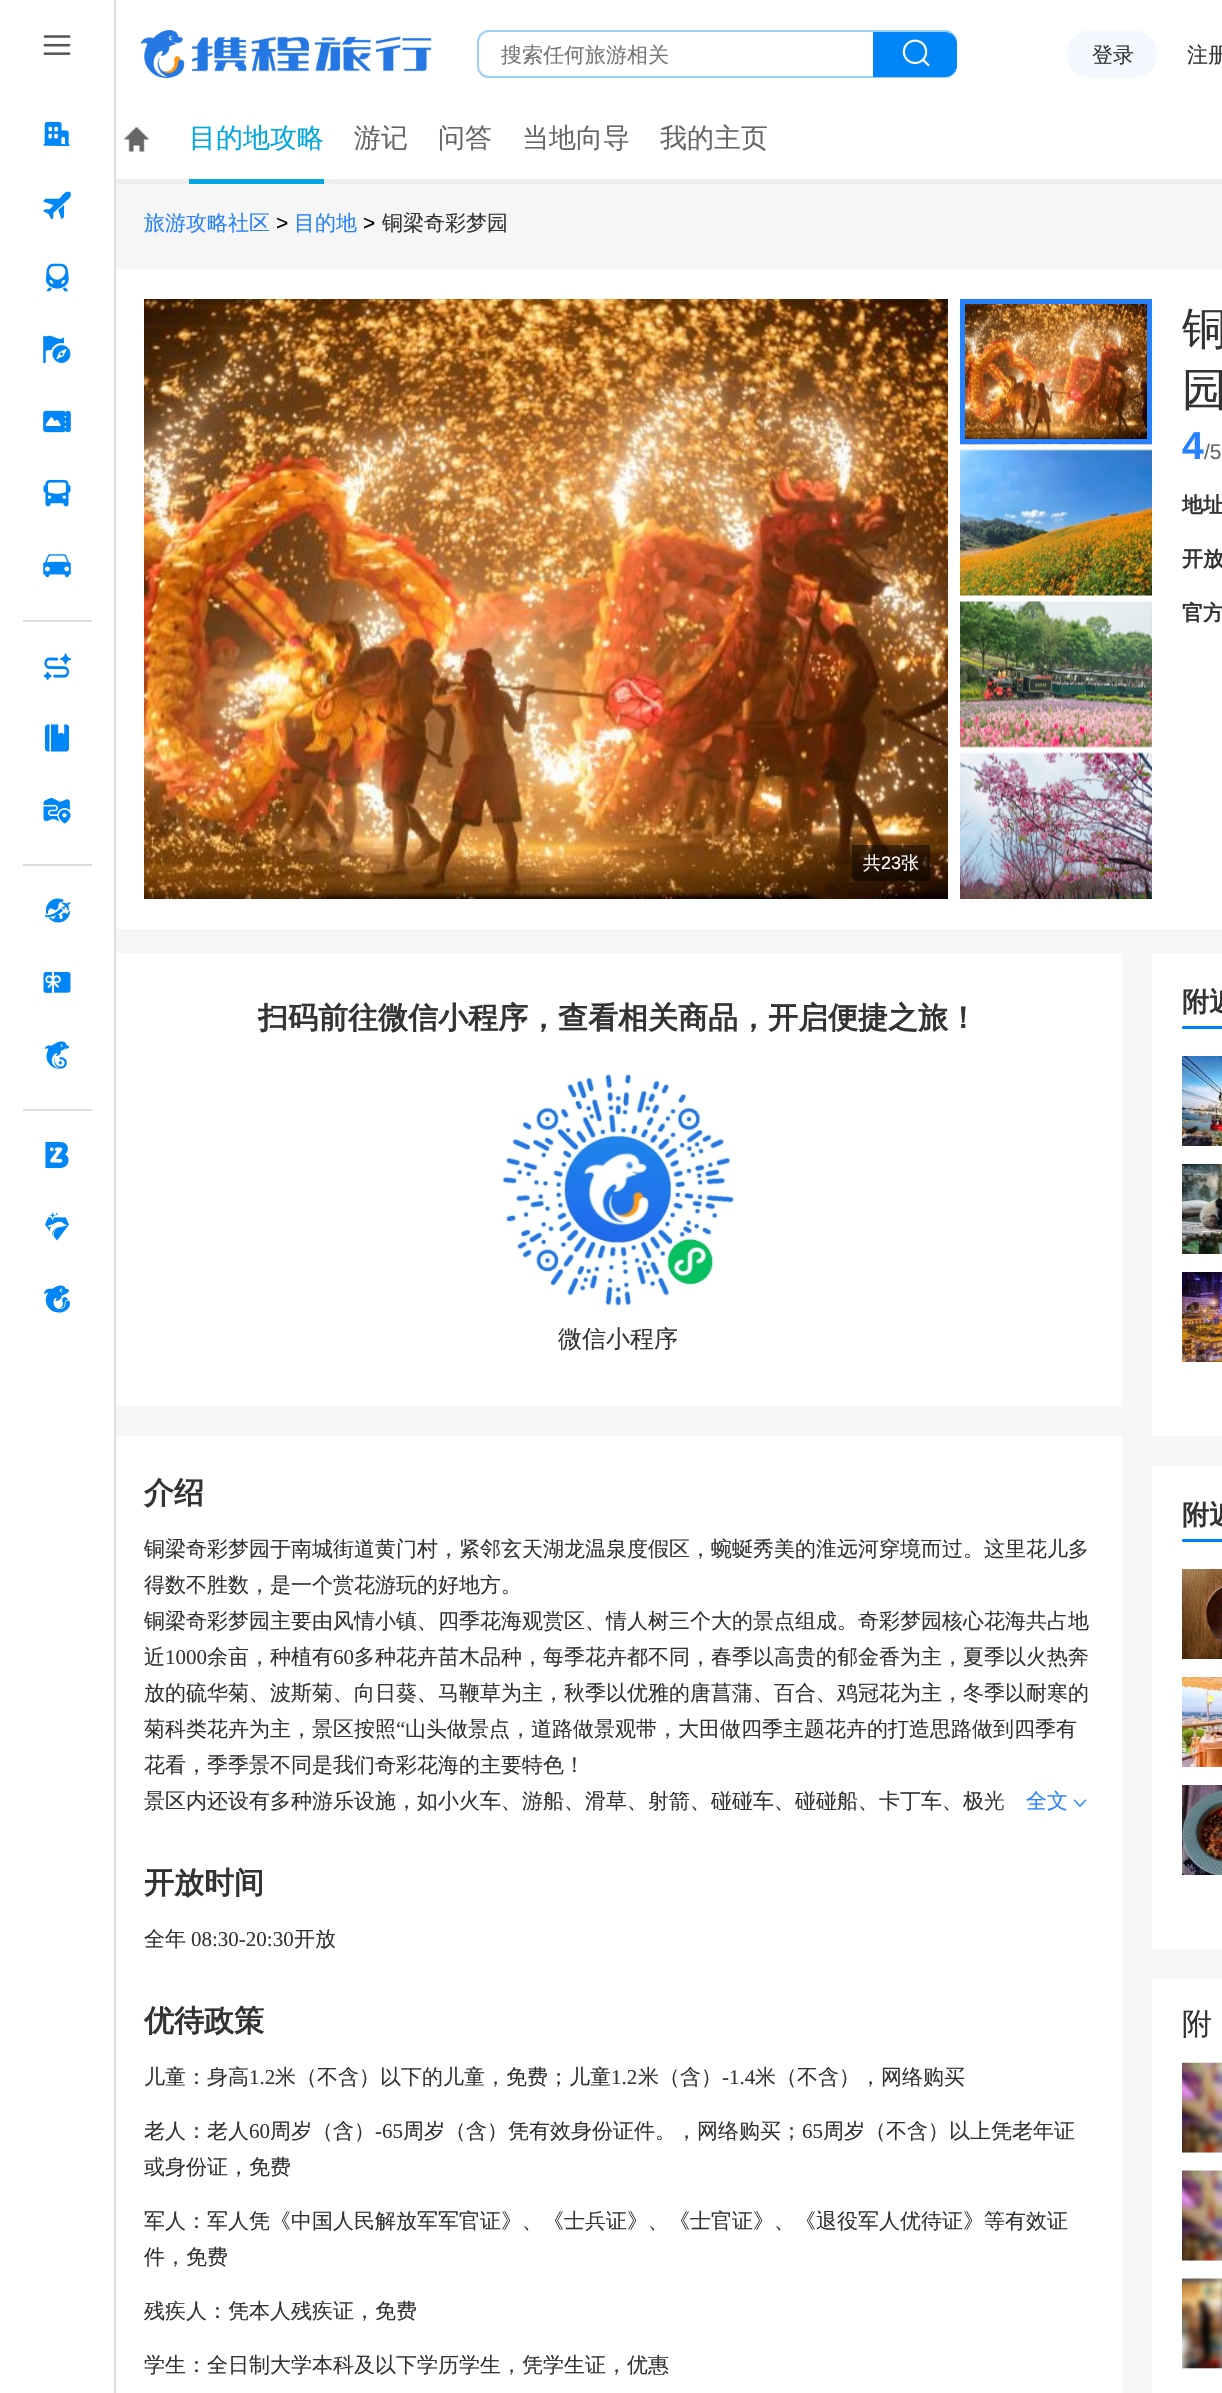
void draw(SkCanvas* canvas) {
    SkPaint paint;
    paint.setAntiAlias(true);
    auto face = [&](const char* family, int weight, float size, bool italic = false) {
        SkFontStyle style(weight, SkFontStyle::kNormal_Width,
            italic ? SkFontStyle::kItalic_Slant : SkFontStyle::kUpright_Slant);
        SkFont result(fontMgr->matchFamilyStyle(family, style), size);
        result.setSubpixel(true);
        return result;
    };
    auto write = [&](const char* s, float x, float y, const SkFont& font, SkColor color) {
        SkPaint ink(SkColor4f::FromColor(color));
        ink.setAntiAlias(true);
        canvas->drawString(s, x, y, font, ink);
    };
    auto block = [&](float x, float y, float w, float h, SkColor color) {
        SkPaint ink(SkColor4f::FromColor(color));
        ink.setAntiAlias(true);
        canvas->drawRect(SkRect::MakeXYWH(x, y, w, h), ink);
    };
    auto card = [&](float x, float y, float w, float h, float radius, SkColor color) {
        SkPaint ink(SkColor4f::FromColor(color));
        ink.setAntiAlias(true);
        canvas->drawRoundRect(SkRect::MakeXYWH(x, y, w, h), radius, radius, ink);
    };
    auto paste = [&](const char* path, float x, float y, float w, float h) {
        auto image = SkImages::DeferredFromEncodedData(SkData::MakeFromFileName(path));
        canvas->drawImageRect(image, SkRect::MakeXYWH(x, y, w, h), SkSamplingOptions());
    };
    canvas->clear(SK_ColorWHITE);
    block(114, 179, 1108, 5, SkColorSetRGB(238, 238, 238));
    block(114, 0, 2, 2393, SkColorSetRGB(218, 223, 230));
    paste("pic1.png", 43, 35, 28, 20);
    paste("pic2.png", 43, 121, 27, 26);
    paste("pic3.png", 43, 191, 28, 29);
    paste("pic4.png", 45, 263, 24, 29);
    paste("pic5.png", 43, 335, 28, 28);
    paste("pic6.png", 43, 410, 28, 23);
    paste("pic7.png", 43, 480, 28, 27);
    paste("pic8.png", 43, 554, 28, 24);
    block(23, 620, 69, 2, SkColorSetRGB(218, 223, 230));
    paste("pic9.png", 43, 653, 29, 27);
    paste("pic10.png", 45, 724, 24, 28);
    paste("pic11.png", 43, 798, 28, 26);
    block(23, 864, 69, 2, SkColorSetRGB(218, 223, 230));
    paste("pic12.png", 45, 898, 26, 25);
    paste("pic13.png", 43, 972, 28, 21);
    paste("pic14.png", 44, 1041, 26, 28);
    block(23, 1109, 69, 2, SkColorSetRGB(218, 223, 230));
    paste("pic15.png", 45, 1141, 24, 28);
    paste("pic16.png", 45, 1212, 24, 29);
    paste("pic17.png", 44, 1285, 26, 28);
    paste("pic18.png", 141, 30, 291, 48);
    paint.setStyle(SkPaint::kStroke_Style);
    paint.setStrokeWidth(2);
    paint.setColor(SkColorSetRGB(154, 206, 251));
    canvas->drawRoundRect(SkRect::MakeXYWH(478, 31, 478, 46), 11, 11, paint);
    auto kFont1 = face("WenQuanYi Zen Hei", 500, 21);
    write("搜索任何旅游相关", 501, 62, kFont1, SkColorSetRGB(117, 117, 117));
    paint.setStyle(SkPaint::kFill_Style);
    paint.setColor(SkColorSetRGB(0, 134, 246));
    canvas->drawPath(SkPathBuilder().moveTo(873, 32).lineTo(945, 32).cubicTo(951.5f, 32, 957, 37.5f, 957, 44).lineTo(957, 65).cubicTo(957, 71.5f, 951.5f, 77, 945, 77).lineTo(873, 77).close().detach(), paint);
    paste("pic19.png", 902, 39, 28, 28);
    card(1067, 30, 90, 48, 24, SkColorSetRGB(242, 248, 254));
    write("登录", 1092, 62, kFont1, SkColorSetRGB(51, 51, 51));
    write("注册", 1187, 62, kFont1, SkColorSetRGB(51, 51, 51));
    paste("pic20.png", 124, 127, 25, 25);
    block(189, 179, 135, 5, SkColorSetRGB(1, 167, 225));
    auto kFont2 = face("WenQuanYi Zen Hei", 500, 27);
    write("目的地攻略", 189, 147, kFont2, SkColorSetRGB(0, 167, 224));
    write("游记", 354, 147, kFont2, SkColorSetRGB(102, 102, 102));
    write("问答", 438, 147, kFont2, SkColorSetRGB(102, 102, 102));
    write("当地向导", 522, 147, kFont2, SkColorSetRGB(102, 102, 102));
    write("我的主页", 660, 147, kFont2, SkColorSetRGB(102, 102, 102));
    block(116, 184, 1106, 2209, SkColorSetRGB(246, 246, 246));
    write("旅游攻略社区", 144, 230, kFont1, SkColorSetRGB(38, 129, 255));
    auto kFont3 = face("Liberation Sans", 400, 21);
    write(">", 276, 230, kFont3, SK_ColorBLACK);
    write("目的地", 294, 230, kFont1, SkColorSetRGB(38, 129, 255));
    write(">", 363, 230, kFont3, SK_ColorBLACK);
    write("铜梁奇彩梦园", 382, 230, kFont1, SkColorSetRGB(51, 51, 51));
    block(116, 269, 1106, 660, SK_ColorWHITE);
    auto kFont4 = face("WenQuanYi Zen Hei", 500, 45);
    write("铜", 1182, 344, kFont4, SkColorSetRGB(51, 51, 51));
    write("园", 1182, 405, kFont4, SkColorSetRGB(51, 51, 51));
    auto kFont5 = face("Liberation Sans", 700, 39);
    write("4", 1182, 459, kFont5, SkColorSetRGB(38, 129, 255));
    write("/5", 1204, 459, kFont3, SkColorSetRGB(102, 102, 102));
    auto kFont6 = face("WenQuanYi Zen Hei", 700, 21);
    write("地址", 1182, 512, kFont6, SkColorSetRGB(51, 51, 51));
    write("开放", 1182, 566, kFont6, SkColorSetRGB(51, 51, 51));
    write("官方", 1182, 620, kFont6, SkColorSetRGB(51, 51, 51));
    paste("pic21.png", 144, 299, 804, 600);
    block(852, 845, 78, 36, SkColorSetARGB(128, 0, 0, 0));
    auto kFont7 = face("WenQuanYi Zen Hei", 500, 18);
    write("共", 863, 869, kFont7, SK_ColorWHITE);
    auto kFont8 = face("Liberation Sans", 400, 18);
    write("23", 881, 869, kFont8, SK_ColorWHITE);
    write("张", 901, 869, kFont7, SK_ColorWHITE);
    paste("pic22.png", 960, 304, 192, 141);
    paint.setStyle(SkPaint::kStroke_Style);
    paint.setStrokeWidth(5);
    paint.setColor(SkColorSetRGB(38, 129, 255));
    canvas->drawRect(SkRect::MakeXYWH(962.5f, 301.5f, 187, 140), paint);
    paste("pic23.png", 960, 449, 192, 147);
    paste("pic24.png", 960, 601, 192, 147);
    paste("pic25.png", 960, 752, 192, 147);
    block(116, 953, 1006, 453, SK_ColorWHITE);
    auto kFont9 = face("WenQuanYi Zen Hei", 700, 30);
    write("扫码前往微信小程序，查看相关商品，开启便捷之旅！", 258, 1028, kFont9, SkColorSetRGB(51, 51, 51));
    paste("pic26.png", 502, 1074, 232, 233);
    auto kFont10 = face("WenQuanYi Zen Hei", 500, 24);
    write("微信小程序", 558, 1347, kFont10, SkColorSetRGB(51, 51, 51));
    block(116, 1436, 1006, 957, SK_ColorWHITE);
    write("介绍", 144, 1503, kFont9, SkColorSetRGB(51, 51, 51));
    write("铜梁奇彩梦园于南城街道黄门村，紧邻玄天湖龙温泉度假区，蜿蜒秀美的淮远河穿境而过。这里花儿多", 144, 1556, kFont1, SkColorSetRGB(51, 51, 51));
    write("得数不胜数，是一个赏花游玩的好地方。", 144, 1592, kFont1, SkColorSetRGB(51, 51, 51));
    write("铜梁奇彩梦园主要由风情小镇、四季花海观赏区、情人树三个大的景点组成。奇彩梦园核心花海共占地", 144, 1628, kFont1, SkColorSetRGB(51, 51, 51));
    write("近", 144, 1664, kFont1, SkColorSetRGB(51, 51, 51));
    auto kFont11 = face("Liberation Serif", 400, 21);
    write("1000", 165, 1664, kFont11, SkColorSetRGB(51, 51, 51));
    write("余亩，种植有", 207, 1664, kFont1, SkColorSetRGB(51, 51, 51));
    write("60", 333, 1664, kFont11, SkColorSetRGB(51, 51, 51));
    write("多种花卉苗木品种，每季花卉都不同，春季以高贵的郁金香为主，夏季以火热奔", 354, 1664, kFont1, SkColorSetRGB(51, 51, 51));
    write("放的硫华菊、波斯菊、向日葵、马鞭草为主，秋季以优雅的唐菖蒲、百合、鸡冠花为主，冬季以耐寒的", 144, 1700, kFont1, SkColorSetRGB(51, 51, 51));
    write("菊科类花卉为主，景区按照", 144, 1736, kFont1, SkColorSetRGB(51, 51, 51));
    write("“", 396, 1736, kFont11, SkColorSetRGB(51, 51, 51));
    write("山头做景点，道路做景观带，大田做四季主题花卉的打造思路做到四季有", 405, 1736, kFont1, SkColorSetRGB(51, 51, 51));
    write("花看，季季景不同是我们奇彩花海的主要特色！", 144, 1772, kFont1, SkColorSetRGB(51, 51, 51));
    write("景区内还设有多种游乐设施，如小火车、游船、滑草、射箭、碰碰车、碰碰船、卡丁车、极光", 144, 1808, kFont1, SkColorSetRGB(51, 51, 51));
    paint.setStyle(SkPaint::kFill_Style);
    {
        const SkColor colors[] = {SkColorSetARGB(0, 255, 255, 255), SK_ColorWHITE};
        const float stops[] = {0, 0.25f};
        const SkPoint ends[] = {{996, 1802}, {1092, 1802}};
        paint.setShader(SkGradientShader::MakeLinear(ends, colors, stops, 2, SkTileMode::kClamp));
        paint.setAlpha(255);
    }
    canvas->drawRect(SkRect::MakeXYWH(997, 1793, 8, 18), paint);
    write("全文", 1026, 1808, kFont1, SkColorSetRGB(38, 129, 255));
    paste("pic27.png", 1073, 1799, 14, 8);
    write("开放时间", 144, 1893, kFont9, SkColorSetRGB(51, 51, 51));
    write("全年", 144, 1946, kFont1, SkColorSetRGB(51, 51, 51));
    write("08:30-20:30", 191, 1946, kFont11, SkColorSetRGB(51, 51, 51));
    write("开放", 294, 1946, kFont1, SkColorSetRGB(51, 51, 51));
    write("优待政策", 144, 2031, kFont9, SkColorSetRGB(51, 51, 51));
    write("儿童：身高", 144, 2084, kFont1, SkColorSetRGB(51, 51, 51));
    write("1.2", 249, 2084, kFont11, SkColorSetRGB(51, 51, 51));
    write("米（不含）以下的儿童，免费；儿童", 275, 2084, kFont1, SkColorSetRGB(51, 51, 51));
    write("1.2", 611, 2084, kFont11, SkColorSetRGB(51, 51, 51));
    write("米（含）", 638, 2084, kFont1, SkColorSetRGB(51, 51, 51));
    write("-1.4", 722, 2084, kFont11, SkColorSetRGB(51, 51, 51));
    write("米（不含），网络购买", 755, 2084, kFont1, SkColorSetRGB(51, 51, 51));
    write("老人：老人", 144, 2138, kFont1, SkColorSetRGB(51, 51, 51));
    write("60", 249, 2138, kFont11, SkColorSetRGB(51, 51, 51));
    write("周岁（含）", 270, 2138, kFont1, SkColorSetRGB(51, 51, 51));
    write("-65", 375, 2138, kFont11, SkColorSetRGB(51, 51, 51));
    write("周岁（含）凭有效身份证件。，网络购买；", 403, 2138, kFont1, SkColorSetRGB(51, 51, 51));
    write("65", 802, 2138, kFont11, SkColorSetRGB(51, 51, 51));
    write("周岁（不含）以上凭老年证", 823, 2138, kFont1, SkColorSetRGB(51, 51, 51));
    write("或身份证，免费", 144, 2174, kFont1, SkColorSetRGB(51, 51, 51));
    write("军人：军人凭《中国人民解放军军官证》、《士兵证》、《士官证》、《退役军人优待证》等有效证", 144, 2228, kFont1, SkColorSetRGB(51, 51, 51));
    write("件，免费", 144, 2264, kFont1, SkColorSetRGB(51, 51, 51));
    write("残疾人：凭本人残疾证，免费", 144, 2318, kFont1, SkColorSetRGB(51, 51, 51));
    write("学生：全日制大学本科及以下学历学生，凭学生证，优惠", 144, 2372, kFont1, SkColorSetRGB(51, 51, 51));
    block(1152, 953, 70, 483, SK_ColorWHITE);
    auto kFont12 = face("WenQuanYi Zen Hei", 700, 27);
    write("附近", 1182, 1011, kFont12, SkColorSetRGB(51, 51, 51));
    paint.setShader(nullptr);
    paint.setColor(SkColorSetRGB(0, 128, 255));
    canvas->drawPath(SkPathBuilder().moveTo(1183.5f, 1026).lineTo(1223, 1026).lineTo(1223, 1029).lineTo(1183.5f, 1029).cubicTo(1182.5f, 1029, 1182, 1028.5f, 1182, 1027.5f).cubicTo(1182, 1026.5f, 1182.5f, 1026, 1183.5f, 1026).close().detach(), paint);
    paste("pic28.png", 1182, 1056, 40, 90);
    paste("pic29.png", 1182, 1164, 40, 90);
    paste("pic30.png", 1182, 1272, 40, 90);
    block(1152, 1466, 70, 483, SK_ColorWHITE);
    write("附近", 1182, 1524, kFont12, SkColorSetRGB(51, 51, 51));
    canvas->drawPath(SkPathBuilder().moveTo(1183.5f, 1539).lineTo(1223, 1539).lineTo(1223, 1542).lineTo(1183.5f, 1542).cubicTo(1182.5f, 1542, 1182, 1541.5f, 1182, 1540.5f).cubicTo(1182, 1539.5f, 1182.5f, 1539, 1183.5f, 1539).close().detach(), paint);
    paste("pic31.png", 1182, 1569, 40, 90);
    paste("pic32.png", 1182, 1677, 40, 90);
    paste("pic33.png", 1182, 1785, 40, 90);
    block(1152, 1979, 70, 414, SK_ColorWHITE);
    auto kFont13 = face("WenQuanYi Zen Hei", 500, 30);
    write("附", 1182, 2034, kFont13, SkColorSetRGB(51, 51, 51));
    block(1182, 2152, 40, 1, SkColorSetRGB(244, 244, 244));
    paste("pic34.png", 1182, 2062, 40, 91);
    block(1182, 2260, 40, 1, SkColorSetRGB(244, 244, 244));
    paste("pic35.png", 1182, 2170, 40, 91);
    block(1182, 2368, 40, 1, SkColorSetRGB(244, 244, 244));
    paste("pic36.png", 1182, 2278, 40, 91);
}
